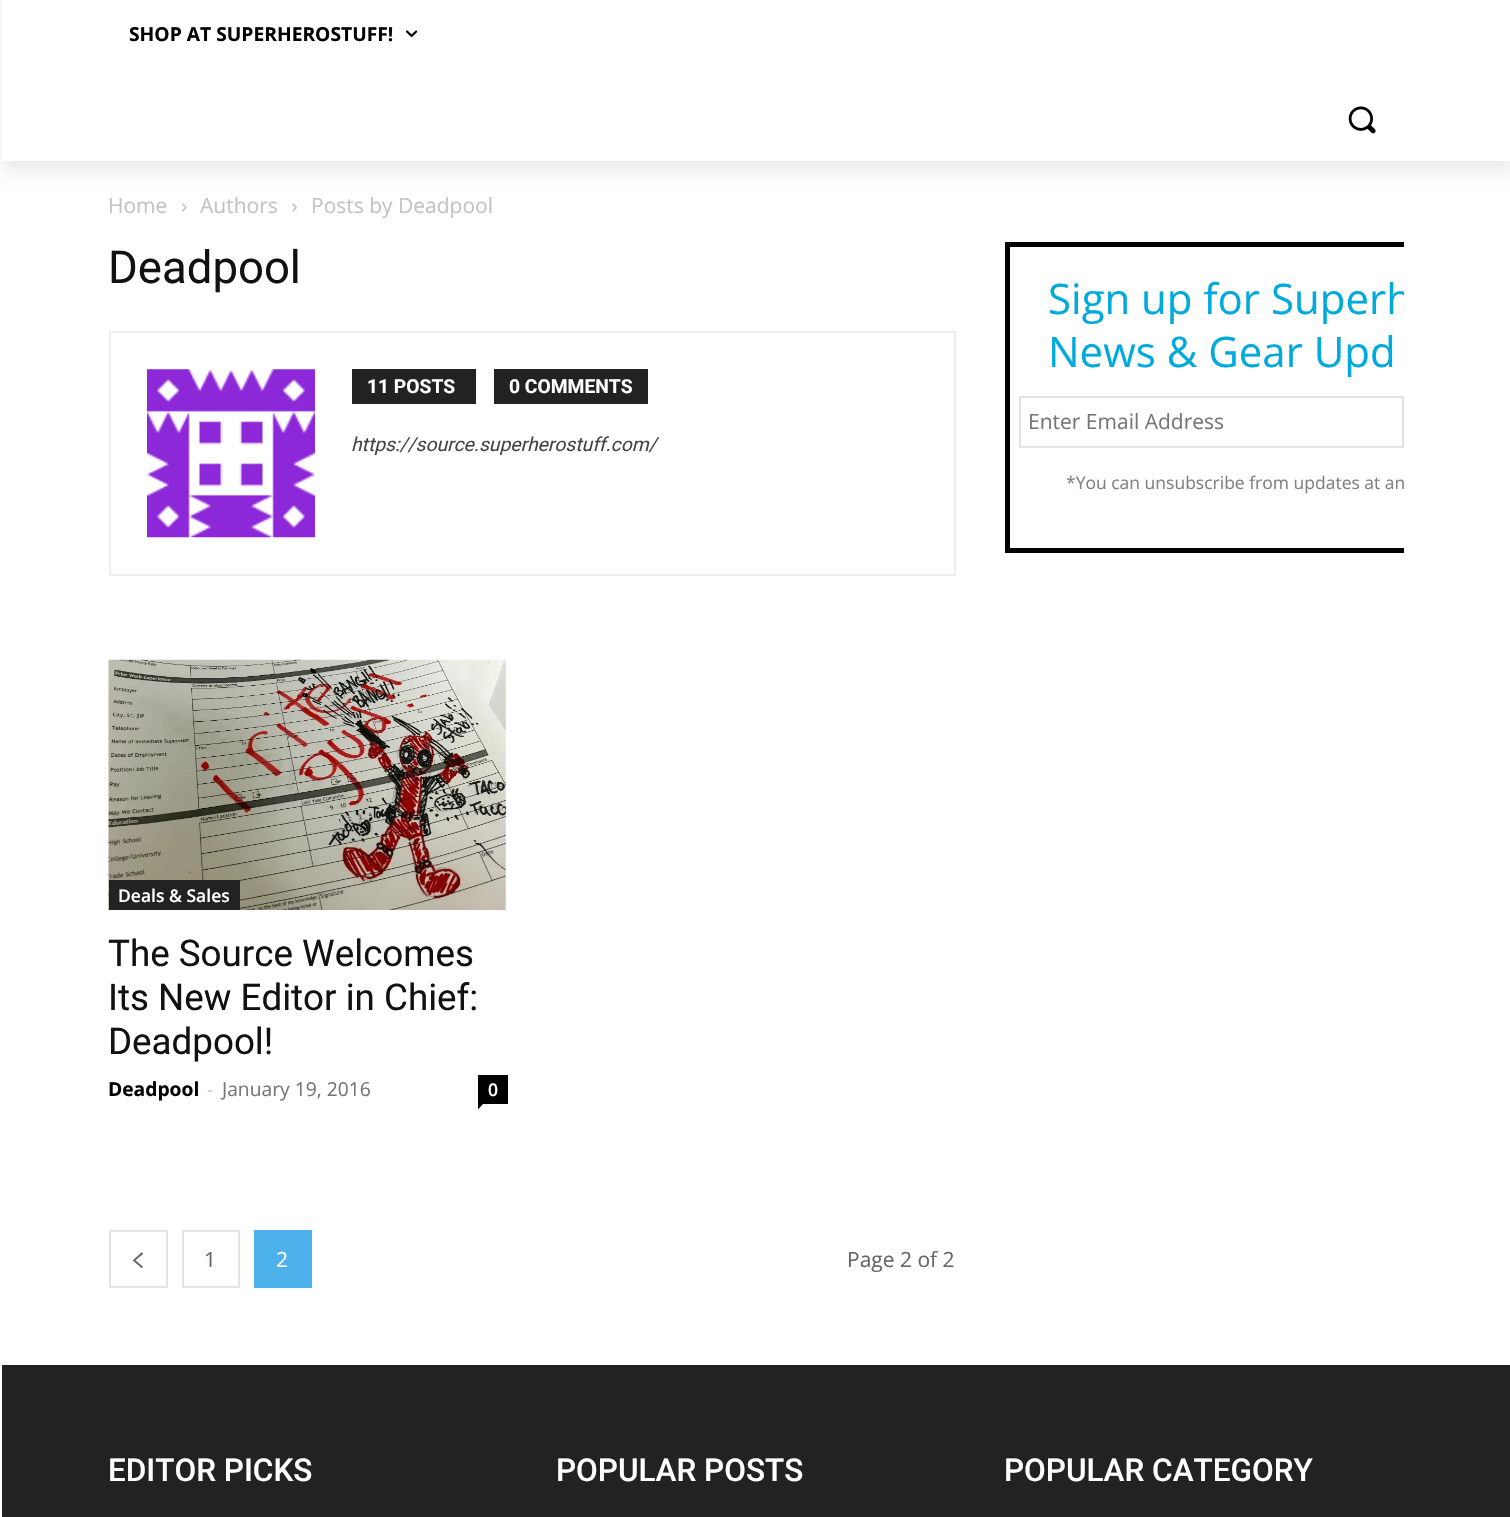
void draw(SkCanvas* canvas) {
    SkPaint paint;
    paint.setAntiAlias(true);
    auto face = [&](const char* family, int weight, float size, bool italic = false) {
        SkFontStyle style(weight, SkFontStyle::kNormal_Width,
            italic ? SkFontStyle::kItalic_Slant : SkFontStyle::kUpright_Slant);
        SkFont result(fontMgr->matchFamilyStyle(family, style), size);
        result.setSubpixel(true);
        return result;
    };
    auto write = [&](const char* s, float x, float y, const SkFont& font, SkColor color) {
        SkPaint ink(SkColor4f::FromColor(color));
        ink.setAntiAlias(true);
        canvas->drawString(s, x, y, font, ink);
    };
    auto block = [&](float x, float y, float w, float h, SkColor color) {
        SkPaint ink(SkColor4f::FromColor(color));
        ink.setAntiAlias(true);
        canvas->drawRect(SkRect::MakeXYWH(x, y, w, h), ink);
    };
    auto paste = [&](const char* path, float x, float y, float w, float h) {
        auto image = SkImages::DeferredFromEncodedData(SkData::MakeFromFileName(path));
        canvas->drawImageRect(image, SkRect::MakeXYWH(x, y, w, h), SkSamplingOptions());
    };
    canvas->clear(SK_ColorWHITE);
    canvas->save();
    canvas->clipPath(SkPathBuilder(SkPathFillType::kEvenOdd).moveTo(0, 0).lineTo(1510, 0).lineTo(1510, 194).lineTo(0, 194).close().moveTo(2, -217).lineTo(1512, -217).lineTo(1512, 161).lineTo(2, 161).close().detach(), true);
    paint.setColor(SkColorSetARGB(20, 0, 0, 0));
    paint.setMaskFilter(SkMaskFilter::MakeBlur(kNormal_SkBlurStyle, 7));
    canvas->drawRect(SkRect::MakeXYWH(2, -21, 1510, 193), paint);
    paint.setMaskFilter(nullptr);
    canvas->restore();
    auto kFont1 = face("Open Sans", 700, 19.25f);
    write("SHOP AT SUPERHEROSTUFF!", 129, 41, kFont1, SK_ColorBLACK);
    paste("pic1.png", 406, 30, 12, 7);
    paste("pic2.png", 1348, 106, 28, 28);
    auto kFont2 = face("Open Sans", 400, 21);
    write("Home", 108, 213, kFont2, SkColorSetRGB(195, 195, 195));
    paste("pic3.png", 182, 203, 5, 9);
    write("Authors", 200, 213, kFont2, SkColorSetRGB(195, 195, 195));
    paste("pic4.png", 292, 203, 5, 9);
    write("Posts by Deadpool", 311, 213, kFont2, SkColorSetRGB(195, 195, 195));
    auto kFont3 = face("Roboto", 400, 45.5f);
    write("Deadpool", 108, 283, kFont3, SkColorSetRGB(17, 17, 17));
    paint.setStyle(SkPaint::kStroke_Style);
    paint.setStrokeWidth(2);
    paint.setColor(SkColorSetRGB(237, 237, 237));
    canvas->drawRect(SkRect::MakeXYWH(110, 332, 845, 243), paint);
    paste("pic5.png", 147, 369, 168, 169);
    block(352, 369, 124, 35, SkColorSetRGB(34, 34, 34));
    auto kFont4 = face("Roboto", 700, 19.25f);
    write("11 POSTS", 367, 393, kFont4, SK_ColorWHITE);
    block(494, 369, 154, 35, SkColorSetRGB(34, 34, 34));
    write("0 COMMENTS", 509, 393, kFont4, SK_ColorWHITE);
    auto kFont5 = face("Roboto", 400, 19.25f, true);
    write("https://source.superherostuff.com/", 351, 451, kFont5, SkColorSetRGB(68, 68, 68));
    paste("pic6.png", 108, 659, 398, 251);
    block(109, 880, 131, 30, SkColorSetRGB(34, 34, 34));
    auto kFont6 = face("Open Sans", 600, 17.5f);
    write("Deals & Sales", 118, 902, kFont6, SK_ColorWHITE);
    auto kFont7 = face("Roboto", 400, 36.75f);
    write("The Source Welcomes", 108, 966, kFont7, SkColorSetRGB(17, 17, 17));
    write("Its New Editor in Chief:", 108, 1010, kFont7, SkColorSetRGB(17, 17, 17));
    write("Deadpool!", 108, 1054, kFont7, SkColorSetRGB(17, 17, 17));
    write("Deadpool", 108, 1096, kFont1, SK_ColorBLACK);
    auto kFont8 = face("Open Sans", 400, 19.25f);
    write("-", 207, 1096, kFont8, SkColorSetRGB(204, 204, 204));
    write("January 19, 2016", 222, 1096, kFont8, SkColorSetRGB(118, 118, 118));
    block(478, 1075, 30, 29, SK_ColorBLACK);
    write("0", 488, 1096, kFont6, SK_ColorWHITE);
    paint.setStyle(SkPaint::kFill_Style);
    paint.setColor(SK_ColorBLACK);
    canvas->drawPath(SkPathBuilder().moveTo(478, 1104).lineTo(483, 1104).lineTo(478, 1109.5f).close().detach(), paint);
    paint.setStyle(SkPaint::kStroke_Style);
    paint.setColor(SkColorSetRGB(227, 227, 227));
    canvas->drawRect(SkRect::MakeXYWH(110, 1231, 57, 56), paint);
    paste("pic7.png", 133, 1252, 10, 17);
    canvas->drawRect(SkRect::MakeXYWH(183, 1231, 56, 56), paint);
    write("1", 204, 1267, kFont2, SkColorSetRGB(102, 102, 102));
    block(254, 1230, 58, 58, SkColorSetRGB(77, 178, 236));
    write("2", 276, 1267, kFont2, SK_ColorWHITE);
    write("Page 2 of 2", 847, 1267, kFont2, SkColorSetRGB(102, 102, 102));
    canvas->save();
    canvas->clipRect(SkRect::MakeXYWH(1005, 242, 399, 320));
    paint.setStrokeWidth(5);
    paint.setColor(SK_ColorBLACK);
    canvas->drawRect(SkRect::MakeXYWH(1007.5f, 244.5f, 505, 306), paint);
    auto kFont9 = face("Open Sans", 400, 42);
    write("Sign up for Superh", 1048, 314, kFont9, SkColorSetRGB(0, 170, 221));
    canvas->restore();
    write("News & Gear Upd", 1048, 367, kFont9, SkColorSetRGB(0, 170, 221));
    paint.setStrokeWidth(2);
    paint.setColor(SkColorSetRGB(225, 225, 225));
    canvas->drawRect(SkRect::MakeXYWH(1020, 397, 383, 50), paint);
    write("Enter Email Address", 1028, 429, kFont2, SkColorSetRGB(118, 118, 118));
    auto kFont10 = face("Open Sans", 400, 17.5f);
    write("*You can unsubscribe from updates at an", 1066, 489, kFont10, SkColorSetRGB(128, 128, 128));
    block(2, 1365, 1508, 152, SkColorSetRGB(34, 34, 34));
    auto kFont11 = face("Roboto", 500, 31.5f);
    write("EDITOR PICKS", 108, 1481, kFont11, SK_ColorWHITE);
    write("POPULAR POSTS", 556, 1481, kFont11, SK_ColorWHITE);
    write("POPULAR CATEGORY", 1004, 1481, kFont11, SK_ColorWHITE);
}
